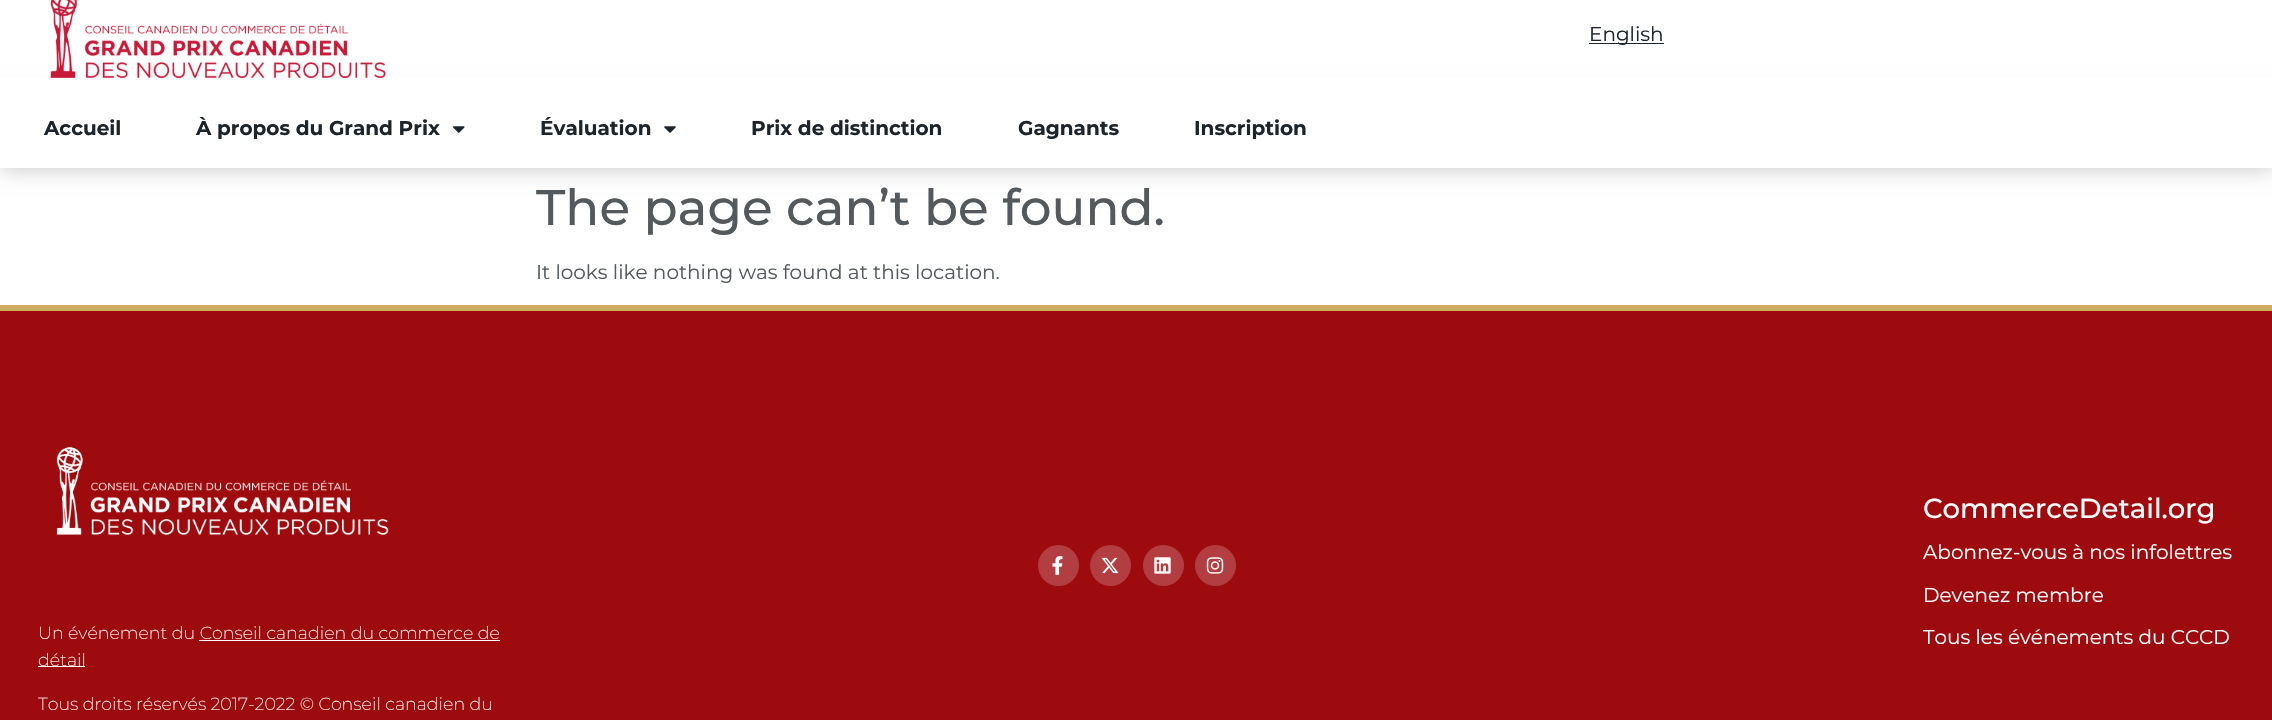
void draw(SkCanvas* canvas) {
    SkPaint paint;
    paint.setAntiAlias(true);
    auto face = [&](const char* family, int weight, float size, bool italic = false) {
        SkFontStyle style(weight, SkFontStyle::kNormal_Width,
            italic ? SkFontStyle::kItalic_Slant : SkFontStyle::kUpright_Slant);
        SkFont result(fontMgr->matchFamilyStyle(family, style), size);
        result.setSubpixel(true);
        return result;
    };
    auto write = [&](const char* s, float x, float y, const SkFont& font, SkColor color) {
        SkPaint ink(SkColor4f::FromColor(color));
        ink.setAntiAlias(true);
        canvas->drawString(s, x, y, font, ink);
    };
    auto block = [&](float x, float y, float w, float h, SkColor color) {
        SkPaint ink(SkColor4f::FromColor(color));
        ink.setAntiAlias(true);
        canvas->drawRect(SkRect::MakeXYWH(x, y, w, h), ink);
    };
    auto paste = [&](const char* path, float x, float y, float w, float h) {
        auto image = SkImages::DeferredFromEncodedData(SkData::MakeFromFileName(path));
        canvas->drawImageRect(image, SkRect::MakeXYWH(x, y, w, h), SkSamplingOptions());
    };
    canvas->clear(SK_ColorWHITE);
    paint.setColor(SkColorSetARGB(51, 0, 0, 0));
    paint.setMaskFilter(SkMaskFilter::MakeBlur(kNormal_SkBlurStyle, 9.5f));
    canvas->drawRect(SkRect::MakeXYWH(0, 93, 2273, 77), paint);
    paint.setMaskFilter(nullptr);
    block(0, 77, 2272, 91, SK_ColorWHITE);
    paste("pic1.png", 50, 0, 336, 79);
    block(1589, 43, 75, 1, SkColorSetRGB(29, 37, 44));
    auto kFont1 = face("Montserrat", 400, 20);
    write("English", 1589, 41, kFont1, SkColorSetRGB(29, 37, 44));
    auto kFont2 = face("Montserrat", 700, 20);
    write("Accueil", 44, 135, kFont2, SkColorSetRGB(29, 37, 44));
    write("À propos du Grand Prix", 196, 135, kFont2, SkColorSetRGB(29, 37, 44));
    paste("pic2.png", 453, 126, 12, 7);
    write("Évaluation", 540, 135, kFont2, SkColorSetRGB(29, 37, 44));
    paste("pic3.png", 664, 126, 12, 7);
    write("Prix de distinction", 751, 135, kFont2, SkColorSetRGB(29, 37, 44));
    write("Gagnants", 1018, 135, kFont2, SkColorSetRGB(29, 37, 44));
    write("Inscription", 1194, 135, kFont2, SkColorSetRGB(29, 37, 44));
    auto kFont3 = face("Montserrat", 500, 50);
    write("The page can’t be found.", 536, 225, kFont3, SkColorSetRGB(84, 89, 93));
    write("It looks like nothing was found at this location.", 536, 279, kFont1, SkColorSetRGB(84, 89, 93));
    block(0, 311, 2272, 409, SkColorSetRGB(158, 11, 15));
    block(0, 305, 2272, 6, SkColorSetRGB(207, 173, 96));
    paint.setColor(SkColorSetRGB(178, 62, 65));
    canvas->drawCircle(1058.5f, 565.5f, 20.5f, paint);
    paste("pic4.png", 1052, 556, 11, 19);
    canvas->drawCircle(1110.5f, 565.5f, 20.5f, paint);
    paste("pic5.png", 1101, 557, 18, 17);
    canvas->drawCircle(1163.5f, 565.5f, 20.5f, paint);
    paste("pic6.png", 1154, 557, 17, 17);
    canvas->drawCircle(1215.5f, 565.5f, 20.5f, paint);
    paste("pic7.png", 1206, 557, 18, 17);
    auto kFont4 = face("Montserrat", 500, 27.5f);
    write("CommerceDetail.org", 1923, 518, kFont4, SK_ColorWHITE);
    write("Abonnez-vous à nos infolettres", 1923, 559, kFont1, SK_ColorWHITE);
    write("Devenez membre", 1923, 602, kFont1, SK_ColorWHITE);
    write("Tous les événements du CCCD", 1923, 644, kFont1, SK_ColorWHITE);
    paste("pic8.png", 56, 447, 333, 88);
    auto kFont5 = face("Montserrat", 200, 17.5f);
    write("Un événement du Conseil canadien du commerce de", 38, 639, kFont5, SK_ColorWHITE);
    block(38, 666, 47, 1, SK_ColorWHITE);
    write("détail", 38, 666, kFont5, SK_ColorWHITE);
    block(199, 640, 301, 1, SK_ColorWHITE);
    write("Tous droits réservés 2017-2022 © Conseil canadien du", 38, 710, kFont5, SK_ColorWHITE);
}
